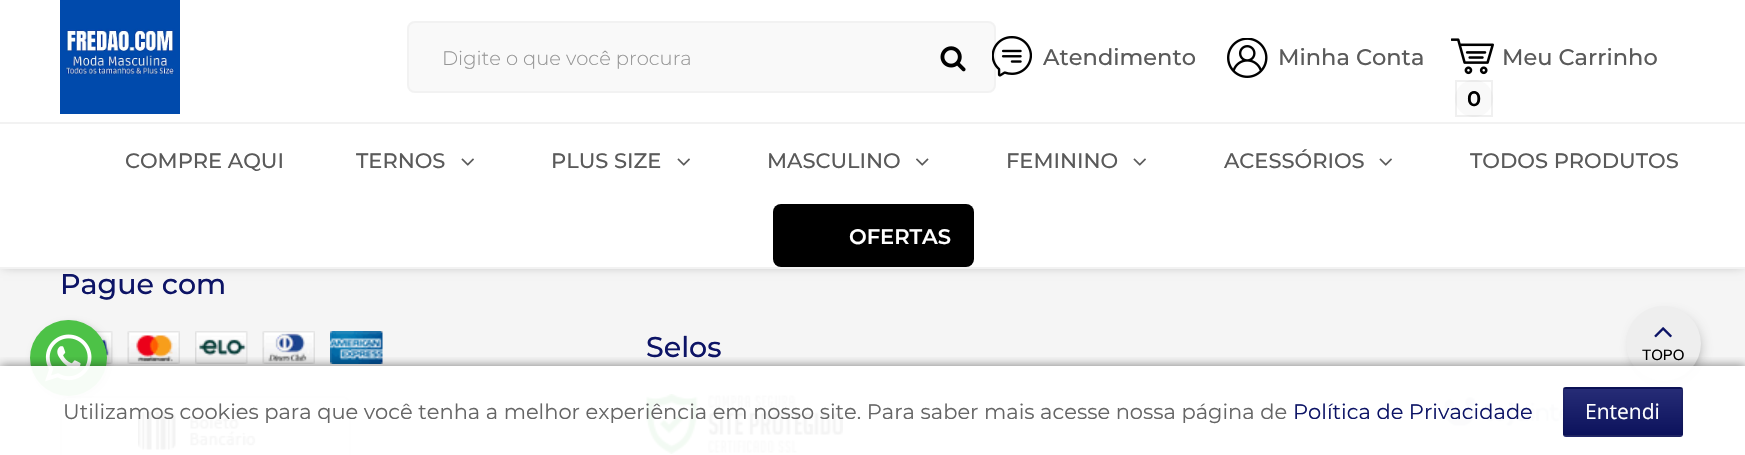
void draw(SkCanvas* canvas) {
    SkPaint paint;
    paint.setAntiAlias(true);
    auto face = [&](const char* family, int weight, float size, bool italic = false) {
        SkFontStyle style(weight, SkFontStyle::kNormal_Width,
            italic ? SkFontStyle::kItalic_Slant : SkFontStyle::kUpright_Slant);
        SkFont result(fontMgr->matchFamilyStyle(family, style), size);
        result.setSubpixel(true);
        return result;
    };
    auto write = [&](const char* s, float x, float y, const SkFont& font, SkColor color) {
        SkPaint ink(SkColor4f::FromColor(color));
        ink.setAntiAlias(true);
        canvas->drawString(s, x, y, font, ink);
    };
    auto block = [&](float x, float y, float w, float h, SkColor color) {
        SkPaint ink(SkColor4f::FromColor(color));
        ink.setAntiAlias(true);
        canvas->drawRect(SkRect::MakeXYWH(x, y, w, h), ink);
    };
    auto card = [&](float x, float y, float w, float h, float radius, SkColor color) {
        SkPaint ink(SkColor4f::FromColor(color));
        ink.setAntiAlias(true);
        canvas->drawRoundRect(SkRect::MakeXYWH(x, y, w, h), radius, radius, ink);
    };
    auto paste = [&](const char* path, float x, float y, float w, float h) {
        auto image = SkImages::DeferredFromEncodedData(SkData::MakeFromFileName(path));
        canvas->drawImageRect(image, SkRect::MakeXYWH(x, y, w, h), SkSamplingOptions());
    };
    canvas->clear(SkColorSetRGB(245, 245, 245));
    paint.setColor(SkColorSetARGB(77, 0, 0, 0));
    paint.setMaskFilter(SkMaskFilter::MakeBlur(kNormal_SkBlurStyle, 5));
    canvas->drawRect(SkRect::MakeXYWH(3, -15, 1740, 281), paint);
    paint.setMaskFilter(nullptr);
    block(0, 0, 1745, 267, SK_ColorWHITE);
    paste("pic1.png", 60, 0, 120, 114);
    card(407, 21, 589, 72, 8, SkColorSetRGB(249, 249, 249));
    paint.setStyle(SkPaint::kStroke_Style);
    paint.setStrokeWidth(2);
    paint.setColor(SkColorSetARGB(145, 238, 238, 238));
    canvas->drawRoundRect(SkRect::MakeXYWH(408, 22, 587, 70), 7, 7, paint);
    auto kFont1 = face("Montserrat", 300, 19.5f);
    write("Digite o que você procura", 442, 65, kFont1, SkColorSetRGB(150, 150, 150));
    paste("pic2.png", 940, 46, 26, 26);
    paste("pic3.png", 992, 36, 40, 41);
    auto kFont2 = face("Montserrat", 500, 22.5f);
    write("Atendimento", 1043, 65, kFont2, SkColorSetRGB(90, 90, 90));
    paste("pic4.png", 1227, 38, 41, 40);
    write("Minha Conta", 1278, 65, kFont2, SkColorSetRGB(90, 90, 90));
    paste("pic5.png", 1451, 38, 43, 37);
    write("Meu Carrinho", 1502, 65, kFont2, SkColorSetRGB(90, 90, 90));
    card(1455, 80, 38, 37, 18.5f, SkColorSetRGB(249, 249, 249));
    paint.setColor(SkColorSetARGB(15, 0, 0, 0));
    canvas->drawRect(SkRect::MakeXYWH(1456, 81, 36, 35), paint);
    auto kFont3 = face("Montserrat", 600, 21);
    write("0", 1467, 106, kFont3, SK_ColorBLACK);
    block(0, 122, 1745, 2, SkColorSetRGB(242, 242, 242));
    block(0, 267, 1745, 2, SkColorSetRGB(242, 242, 242));
    auto kFont4 = face("Montserrat", 500, 21);
    write("COMPRE AQUI", 125, 168, kFont4, SkColorSetRGB(90, 90, 90));
    write("TERNOS", 356, 168, kFont4, SkColorSetRGB(90, 90, 90));
    paste("pic6.png", 461, 158, 13, 8);
    write("PLUS SIZE", 551, 168, kFont4, SkColorSetRGB(90, 90, 90));
    paste("pic6.png", 677, 158, 13, 8);
    write("MASCULINO", 767, 168, kFont4, SkColorSetRGB(90, 90, 90));
    paste("pic7.png", 916, 158, 13, 8);
    write("FEMININO", 1006, 168, kFont4, SkColorSetRGB(90, 90, 90));
    paste("pic6.png", 1133, 158, 13, 8);
    write("ACESSÓRIOS", 1224, 168, kFont4, SkColorSetRGB(90, 90, 90));
    paste("pic6.png", 1379, 158, 13, 8);
    write("TODOS PRODUTOS", 1470, 168, kFont4, SkColorSetRGB(90, 90, 90));
    card(773, 204, 201, 63, 8, SK_ColorBLACK);
    write("OFERTAS", 849, 244, kFont3, SK_ColorWHITE);
    auto kFont5 = face("Montserrat", 500, 28.5f);
    write("Pague com", 60, 294, kFont5, SkColorSetRGB(13, 20, 102));
    paste("pic8.png", 95, 331, 18, 33);
    paste("pic9.png", 127, 331, 53, 33);
    paste("pic10.png", 195, 331, 53, 33);
    paste("pic11.png", 262, 331, 53, 33);
    paste("pic12.png", 330, 331, 53, 33);
    canvas->save();
    canvas->clipPath(SkPathBuilder().moveTo(69, 396).lineTo(342, 396).cubicTo(347, 396, 351, 400, 351, 405).lineTo(351, 525).cubicTo(351, 530, 347, 534, 342, 534).lineTo(69, 534).cubicTo(64, 534, 60, 530, 60, 525).lineTo(60, 405).cubicTo(60, 400, 64, 396, 69, 396).close().detach(), true);
    paint.setStyle(SkPaint::kFill_Style);
    {
        const SkColor colors[] = {SK_ColorWHITE, SkColorSetRGB(245, 245, 245)};
        const float stops[] = {0, 1};
        const SkPoint ends[] = {{206, 398}, {206, 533}};
        paint.setShader(SkGradientShader::MakeLinear(ends, colors, stops, 2, SkTileMode::kClamp));
        paint.setAlpha(255);
    }
    canvas->drawRect(SkRect::MakeXYWH(60, 398, 291, 57), paint);
    canvas->restore();
    paint.setStyle(SkPaint::kStroke_Style);
    paint.setShader(nullptr);
    paint.setColor(SkColorSetRGB(221, 221, 221));
    canvas->drawRoundRect(SkRect::MakeXYWH(61, 397, 289, 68), 8, 8, paint);
    paste("pic13.png", 138, 412, 118, 38);
    write("Selos", 646, 357, kFont5, SkColorSetRGB(13, 20, 102));
    paste("pic14.png", 646, 394, 197, 60);
    paste("pic15.png", 1431, 389, 255, 49);
    paint.setStyle(SkPaint::kFill_Style);
    paint.setColor(SkColorSetARGB(46, 0, 0, 0));
    paint.setMaskFilter(SkMaskFilter::MakeBlur(kNormal_SkBlurStyle, 3));
    canvas->drawRoundRect(SkRect::MakeXYWH(33, 323, 77, 76), 38, 38, paint);
    paint.setMaskFilter(nullptr);
    card(30, 320, 77, 76, 38, SkColorSetRGB(77, 194, 71));
    paste("pic16.png", 45, 334, 47, 48);
    paint.setColor(SkColorSetARGB(163, 0, 0, 0));
    paint.setMaskFilter(SkMaskFilter::MakeBlur(kNormal_SkBlurStyle, 8));
    canvas->drawRoundRect(SkRect::MakeXYWH(1638, 320, 57, 57), 28.5f, 28.5f, paint);
    paint.setMaskFilter(nullptr);
    paint.setColor(SkColorSetRGB(238, 238, 238));
    canvas->drawCircle(1663.5f, 343.5f, 37.5f, paint);
    paste("pic17.png", 1654, 327, 18, 11);
    auto kFont6 = face("Liberation Sans", 400, 15);
    write("TOPO", 1642, 360, kFont6, SK_ColorBLACK);
    canvas->save();
    canvas->clipRect(SkRect::MakeXYWH(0, 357, 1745, 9));
    paint.setColor(SkColorSetARGB(128, 0, 0, 0));
    paint.setMaskFilter(SkMaskFilter::MakeBlur(kNormal_SkBlurStyle, 5));
    canvas->drawRect(SkRect::MakeXYWH(0, 366, 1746, 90), paint);
    paint.setMaskFilter(nullptr);
    canvas->restore();
    block(0, 366, 1745, 89, SkColorSetARGB(242, 255, 255, 255));
    auto kFont7 = face("Montserrat", 400, 21);
    write("Utilizamos cookies para que você tenha a melhor experiência em nosso site. Para saber mais acesse nossa página de", 63, 419, kFont7, SkColorSetRGB(102, 102, 102));
    write("Política de Privacidade", 1293, 419, kFont7, SkColorSetRGB(13, 20, 102));
    card(1563, 387, 120, 50, 3, SkColorSetRGB(13, 20, 102));
    {
        const SkColor colors[] = {SkColorSetARGB(26, 255, 255, 255), SkColorSetARGB(26, 0, 0, 0)};
        const float stops[] = {0, 1};
        const SkPoint ends[] = {{1623, 342}, {1623, 389}};
        paint.setShader(SkGradientShader::MakeLinear(ends, colors, stops, 2, SkTileMode::kClamp));
        paint.setAlpha(255);
    }
    canvas->drawRect(SkRect::MakeXYWH(1563, 387, 120, 2), paint);
    {
        const SkColor colors[] = {SkColorSetARGB(26, 255, 255, 255), SkColorSetARGB(26, 0, 0, 0)};
        const float stops[] = {0, 1};
        const SkPoint ends[] = {{1623, 389}, {1623, 435}};
        paint.setShader(SkGradientShader::MakeLinear(ends, colors, stops, 2, SkTileMode::kClamp));
        paint.setAlpha(255);
    }
    canvas->drawRect(SkRect::MakeXYWH(1563, 389, 120, 46), paint);
    {
        const SkColor colors[] = {SkColorSetARGB(26, 255, 255, 255), SkColorSetARGB(26, 0, 0, 0)};
        const float stops[] = {0, 1};
        const SkPoint ends[] = {{1623, 435}, {1623, 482}};
        paint.setShader(SkGradientShader::MakeLinear(ends, colors, stops, 2, SkTileMode::kClamp));
        paint.setAlpha(255);
    }
    canvas->drawRect(SkRect::MakeXYWH(1563, 435, 120, 2), paint);
    paint.setStyle(SkPaint::kStroke_Style);
    paint.setStrokeWidth(1.5f);
    paint.setShader(nullptr);
    paint.setColor(SkColorSetARGB(51, 0, 0, 0));
    canvas->drawPath(SkPathBuilder().moveTo(1681.5f, 435).lineTo(1680, 436).lineTo(1566, 435.5f).lineTo(1564.5f, 435).detach(), paint);
    paint.setColor(SkColorSetARGB(26, 0, 0, 0));
    canvas->drawPath(SkPathBuilder().moveTo(1564.5f, 435).cubicTo(1562.5f, 433.5f, 1564, 415, 1564, 412).lineTo(1564, 397).cubicTo(1564, 397, 1562, 388, 1566, 388).lineTo(1680, 388).cubicTo(1684, 388, 1682, 397, 1682, 397).lineTo(1682, 412).cubicTo(1682, 415, 1683.5f, 433.5f, 1681.5f, 435).detach(), paint);
    auto kFont8 = face("Open Sans", 400, 21);
    write("Entendi", 1585, 419, kFont8, SK_ColorWHITE);
}
